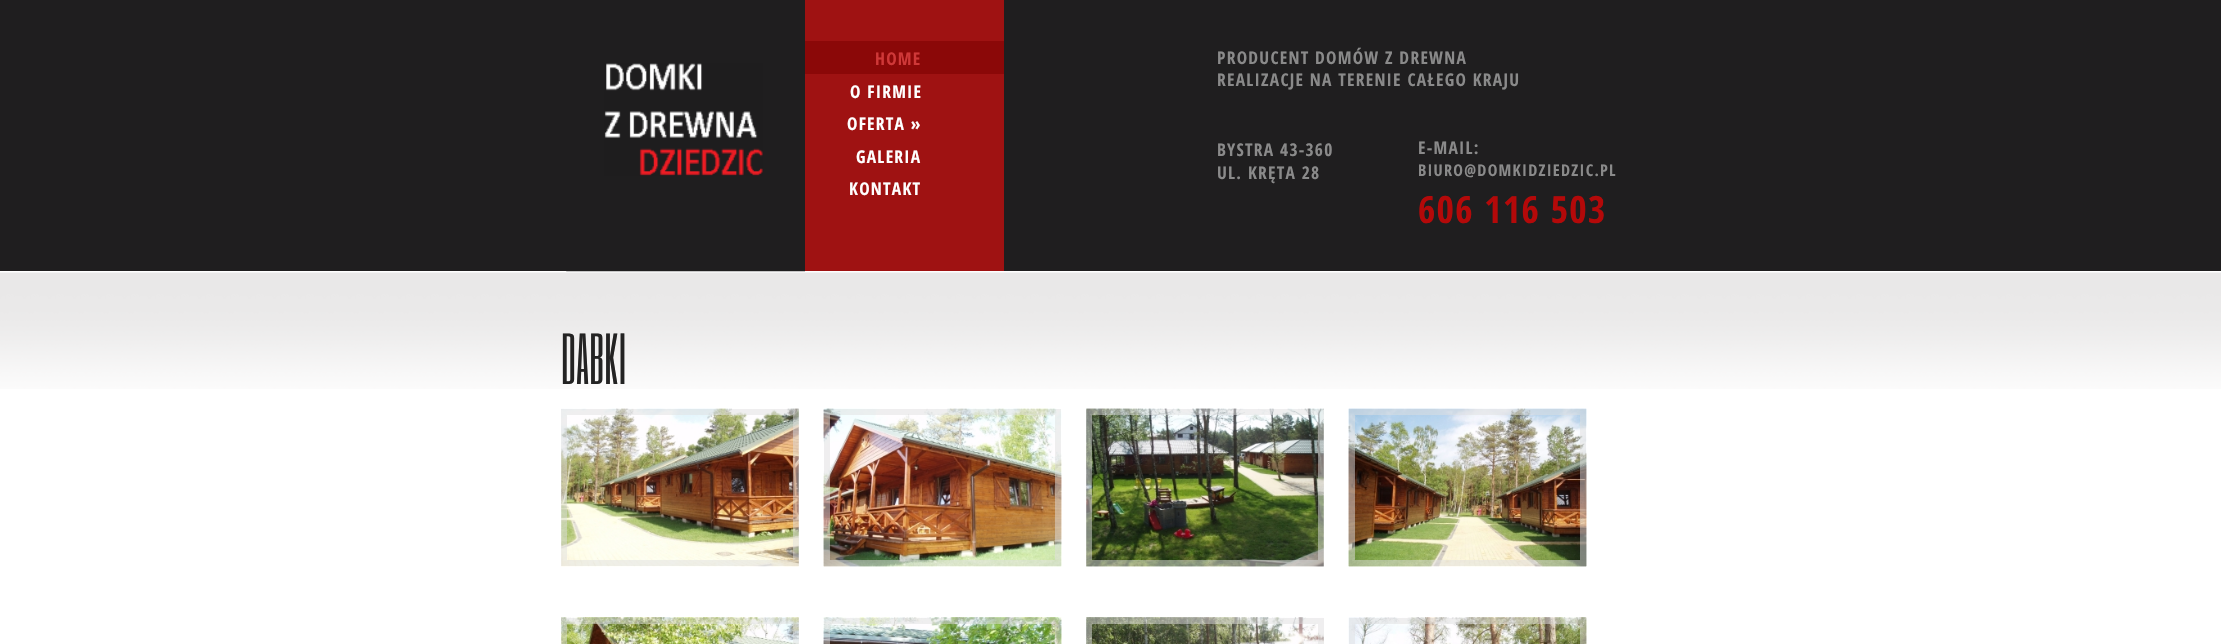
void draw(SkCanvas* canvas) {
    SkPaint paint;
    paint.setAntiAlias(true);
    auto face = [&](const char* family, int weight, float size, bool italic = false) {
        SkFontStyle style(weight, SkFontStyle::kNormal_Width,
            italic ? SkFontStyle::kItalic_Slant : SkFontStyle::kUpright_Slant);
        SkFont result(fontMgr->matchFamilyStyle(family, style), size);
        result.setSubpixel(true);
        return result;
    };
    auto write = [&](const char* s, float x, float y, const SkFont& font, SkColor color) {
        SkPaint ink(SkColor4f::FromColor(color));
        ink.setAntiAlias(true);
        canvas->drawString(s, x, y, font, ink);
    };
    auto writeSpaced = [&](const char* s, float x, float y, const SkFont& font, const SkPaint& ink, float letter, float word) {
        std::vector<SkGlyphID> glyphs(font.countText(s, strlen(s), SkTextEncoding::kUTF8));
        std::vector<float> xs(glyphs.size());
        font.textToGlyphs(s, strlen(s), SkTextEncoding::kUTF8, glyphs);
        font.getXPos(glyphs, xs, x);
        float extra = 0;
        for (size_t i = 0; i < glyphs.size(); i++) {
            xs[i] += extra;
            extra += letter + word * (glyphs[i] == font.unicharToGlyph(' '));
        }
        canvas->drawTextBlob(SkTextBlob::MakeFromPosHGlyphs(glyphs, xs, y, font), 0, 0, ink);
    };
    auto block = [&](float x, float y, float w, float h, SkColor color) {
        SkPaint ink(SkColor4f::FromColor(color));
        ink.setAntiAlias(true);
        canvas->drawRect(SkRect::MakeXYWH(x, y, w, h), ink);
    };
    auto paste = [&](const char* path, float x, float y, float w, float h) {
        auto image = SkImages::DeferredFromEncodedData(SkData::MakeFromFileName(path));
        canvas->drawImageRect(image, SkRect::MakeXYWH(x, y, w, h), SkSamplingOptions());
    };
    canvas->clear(SK_ColorWHITE);
    block(0, 0, 2221, 271, SkColorSetRGB(31, 30, 31));
    paste("pic3.png", 0, 271, 2221, 118);
    paste("pic1.png", 566, 271, 239, 1);
    paste("pic2.png", 604, 63, 159, 113);
    block(805, 0, 199, 271, SkColorSetRGB(159, 18, 18));
    block(805, 41, 199, 33, SkColorSetRGB(139, 8, 8));
    auto kFont1 = face("Open Sans Condensed", 700, 17.5f);
    paint.setColor(SkColorSetRGB(207, 56, 56));
    writeSpaced("HOME", 875, 65, kFont1, paint, 1.25f, 0);
    paint.setColor(SK_ColorWHITE);
    writeSpaced("O FIRMIE", 850, 98, kFont1, paint, 1.25f, 0);
    writeSpaced("OFERTA »", 847, 130, kFont1, paint, 1.25f, 0);
    writeSpaced("GALERIA", 856, 163, kFont1, paint, 1.25f, 0);
    writeSpaced("KONTAKT", 849, 195, kFont1, paint, 1.25f, 0);
    paint.setColor(SkColorSetRGB(138, 138, 138));
    writeSpaced("PRODUCENT DOMÓW Z DREWNA", 1217, 64, kFont1, paint, 1.25f, 0);
    writeSpaced("REALIZACJE NA TERENIE CAŁEGO KRAJU", 1217, 86, kFont1, paint, 1.25f, 0);
    writeSpaced("BYSTRA 43-360", 1217, 156, kFont1, paint, 1.25f, 0);
    writeSpaced("UL. KRĘTA 28", 1217, 179, kFont1, paint, 1.25f, 0);
    writeSpaced("E-MAIL:", 1418, 154, kFont1, paint, 1.25f, 0);
    auto kFont2 = face("Open Sans Condensed", 700, 16.25f);
    writeSpaced("BIURO@DOMKIDZIEDZIC.PL", 1418, 176, kFont2, paint, 1.25f, 0);
    auto kFont3 = face("Open Sans Condensed", 700, 37.5f);
    paint.setColor(SkColorSetRGB(180, 9, 9));
    writeSpaced("606 116 503", 1418, 223, kFont3, paint, 1.25f, 0);
    auto kFont4 = face("Six Caps", 400, 60);
    write("DABKI", 561, 384, kFont4, SkColorSetRGB(35, 35, 35));
    paste("pic4.png", 561, 408, 238, 159);
    paint.setStyle(SkPaint::kStroke_Style);
    paint.setStrokeWidth(6);
    paint.setColor(SkColorSetARGB(128, 224, 224, 224));
    canvas->drawRect(SkRect::MakeXYWH(564, 412, 232, 151), paint);
    paste("pic5.png", 823, 408, 239, 159);
    canvas->drawRect(SkRect::MakeXYWH(827, 412, 231, 151), paint);
    paste("pic6.png", 1086, 408, 238, 159);
    canvas->drawRect(SkRect::MakeXYWH(1089, 412, 232, 151), paint);
    paste("pic7.png", 1348, 408, 239, 159);
    canvas->drawRect(SkRect::MakeXYWH(1352, 412, 231, 151), paint);
    paste("pic8.png", 561, 617, 238, 27);
    canvas->drawRect(SkRect::MakeXYWH(564, 621, 232, 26), paint);
    paste("pic9.png", 823, 617, 239, 27);
    canvas->drawRect(SkRect::MakeXYWH(827, 621, 231, 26), paint);
    paste("pic10.png", 1086, 617, 238, 27);
    canvas->drawRect(SkRect::MakeXYWH(1089, 621, 232, 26), paint);
    paste("pic11.png", 1348, 617, 239, 27);
    canvas->drawRect(SkRect::MakeXYWH(1352, 621, 231, 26), paint);
}
